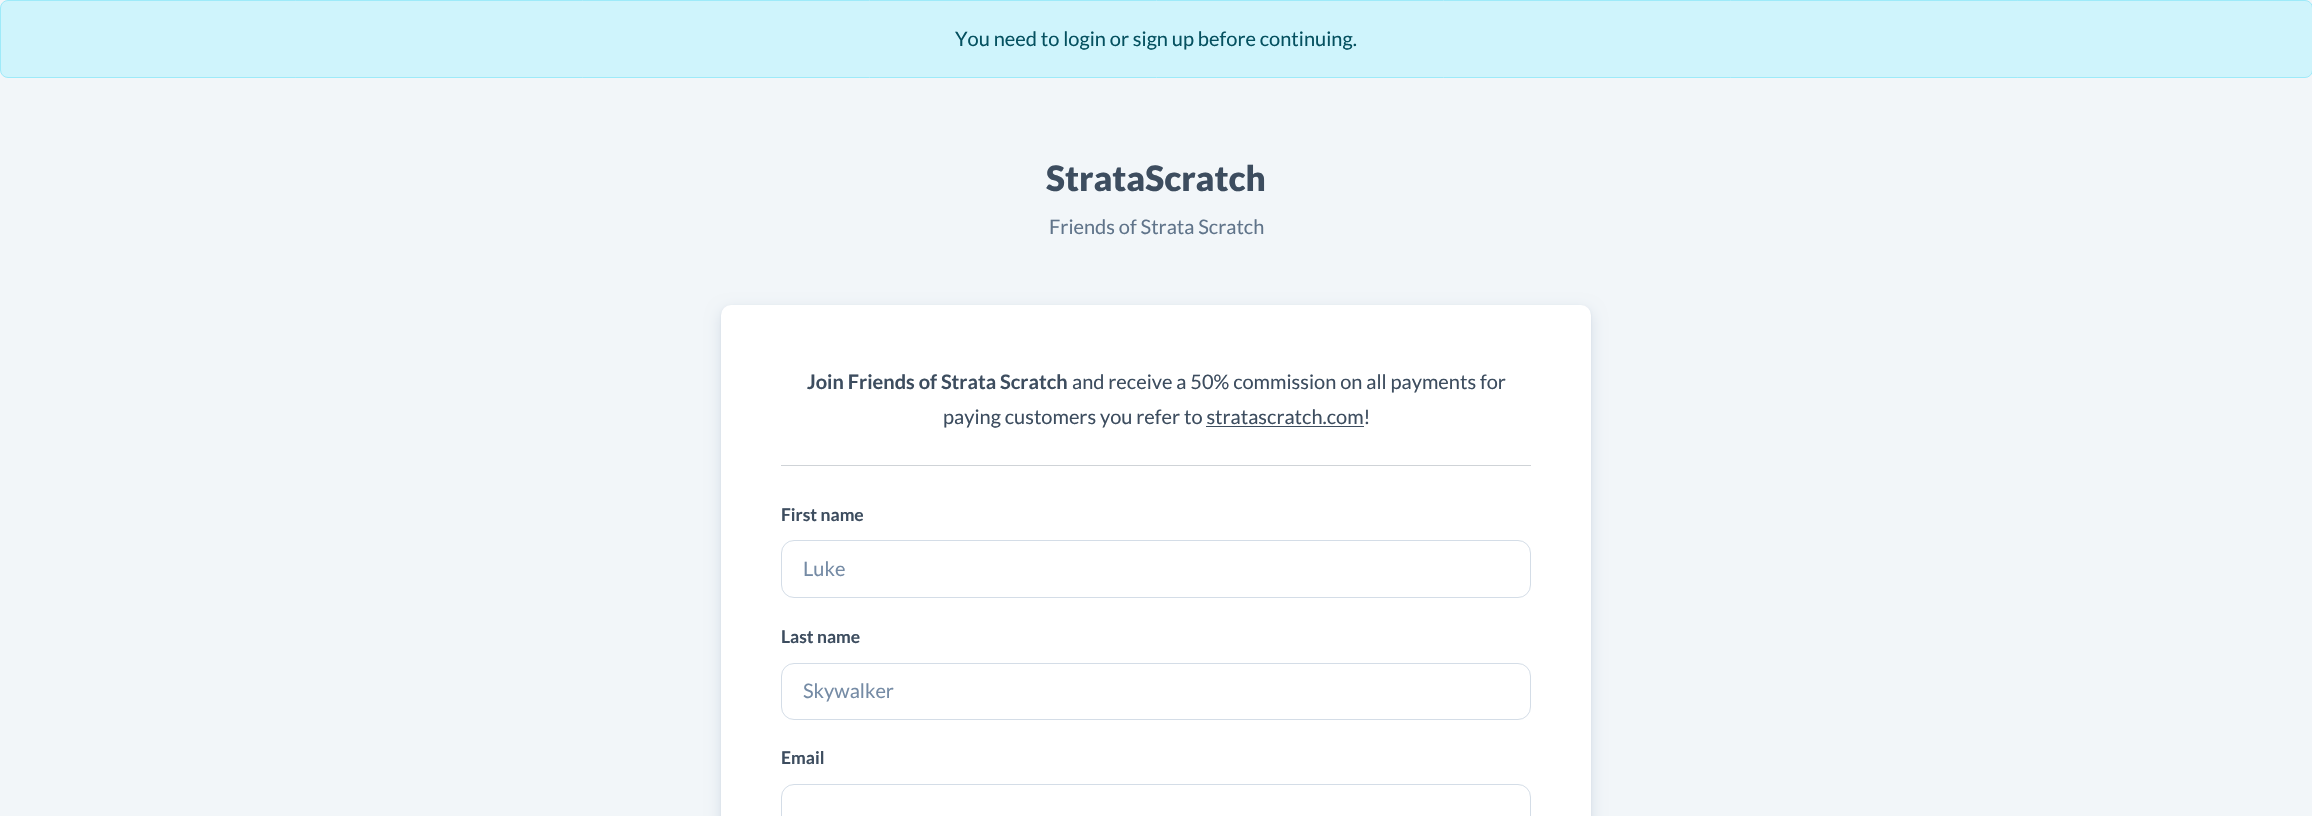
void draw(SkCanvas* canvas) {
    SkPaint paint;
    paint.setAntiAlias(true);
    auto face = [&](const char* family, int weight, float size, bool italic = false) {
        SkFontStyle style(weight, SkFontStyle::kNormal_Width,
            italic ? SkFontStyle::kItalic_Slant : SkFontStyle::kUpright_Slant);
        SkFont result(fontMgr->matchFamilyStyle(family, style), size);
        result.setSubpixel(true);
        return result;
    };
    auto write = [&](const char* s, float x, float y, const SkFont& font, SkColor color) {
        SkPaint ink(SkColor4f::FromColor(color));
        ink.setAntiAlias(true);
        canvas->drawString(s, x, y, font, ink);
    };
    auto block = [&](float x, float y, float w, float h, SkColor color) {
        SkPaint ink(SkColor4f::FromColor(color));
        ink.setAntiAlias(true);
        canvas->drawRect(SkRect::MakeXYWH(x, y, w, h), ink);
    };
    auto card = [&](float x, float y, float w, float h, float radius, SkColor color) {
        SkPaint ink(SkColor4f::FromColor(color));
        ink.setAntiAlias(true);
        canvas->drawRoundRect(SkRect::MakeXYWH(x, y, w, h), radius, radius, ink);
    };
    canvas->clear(SkColorSetRGB(242, 246, 249));
    paint.setColor(SkColorSetRGB(207, 244, 252));
    canvas->drawRoundRect(SkRect::MakeXYWH(0.5f, 0.5f, 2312, 77), 7.5f, 7.5f, paint);
    paint.setStyle(SkPaint::kStroke_Style);
    paint.setStrokeWidth(1);
    paint.setColor(SkColorSetRGB(158, 234, 249));
    canvas->drawRoundRect(SkRect::MakeXYWH(0.5f, 0.5f, 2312, 77), 7.5f, 7.5f, paint);
    auto kFont1 = face("Lato", 400, 20);
    write("You need to login or sign up before continuing.", 955, 46, kFont1, SkColorSetRGB(5, 81, 96));
    auto kFont2 = face("Lato", 900, 35);
    write("StrataScratch", 1046, 191, kFont2, SkColorSetRGB(61, 77, 95));
    write("Friends of Strata Scratch", 1049, 234, kFont1, SkColorSetRGB(96, 116, 138));
    paint.setStyle(SkPaint::kFill_Style);
    paint.setColor(SkColorSetRGB(212, 221, 231));
    paint.setMaskFilter(SkMaskFilter::MakeBlur(kNormal_SkBlurStyle, 7.5f));
    canvas->drawRoundRect(SkRect::MakeXYWH(721, 310, 870, 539), 10, 10, paint);
    paint.setMaskFilter(nullptr);
    paint.setMaskFilter(SkMaskFilter::MakeBlur(kNormal_SkBlurStyle, 1));
    canvas->drawRoundRect(SkRect::MakeXYWH(721, 306, 870, 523), 10, 10, paint);
    paint.setMaskFilter(nullptr);
    card(721, 305, 870, 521, 10, SK_ColorWHITE);
    auto kFont3 = face("Lato", 700, 20);
    write("Join Friends of Strata Scratch", 807, 389, kFont3, SkColorSetRGB(61, 77, 95));
    write("and receive a 50% commission on all payments for", 1072, 389, kFont1, SkColorSetRGB(61, 77, 95));
    write("paying customers you refer to stratascratch.com!", 943, 424, kFont1, SkColorSetRGB(61, 77, 95));
    block(1206, 426, 158, 1, SkColorSetRGB(61, 77, 95));
    block(781, 465, 750, 1, SkColorSetRGB(207, 211, 215));
    auto kFont4 = face("Lato", 700, 17.5f);
    write("First name", 781, 521, kFont4, SkColorSetRGB(61, 77, 95));
    paint.setStyle(SkPaint::kStroke_Style);
    canvas->drawRoundRect(SkRect::MakeXYWH(781.5f, 540.5f, 749, 57), 12.5f, 12.5f, paint);
    write("Luke", 803, 576, kFont1, SkColorSetRGB(117, 139, 165));
    write("Last name", 781, 643, kFont4, SkColorSetRGB(61, 77, 95));
    canvas->drawRoundRect(SkRect::MakeXYWH(781.5f, 663.5f, 749, 56), 12.5f, 12.5f, paint);
    write("Skywalker", 803, 698, kFont1, SkColorSetRGB(117, 139, 165));
    write("Email", 781, 764, kFont4, SkColorSetRGB(61, 77, 95));
    canvas->drawRoundRect(SkRect::MakeXYWH(781.5f, 784.5f, 749, 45), 12.5f, 12.5f, paint);
}
